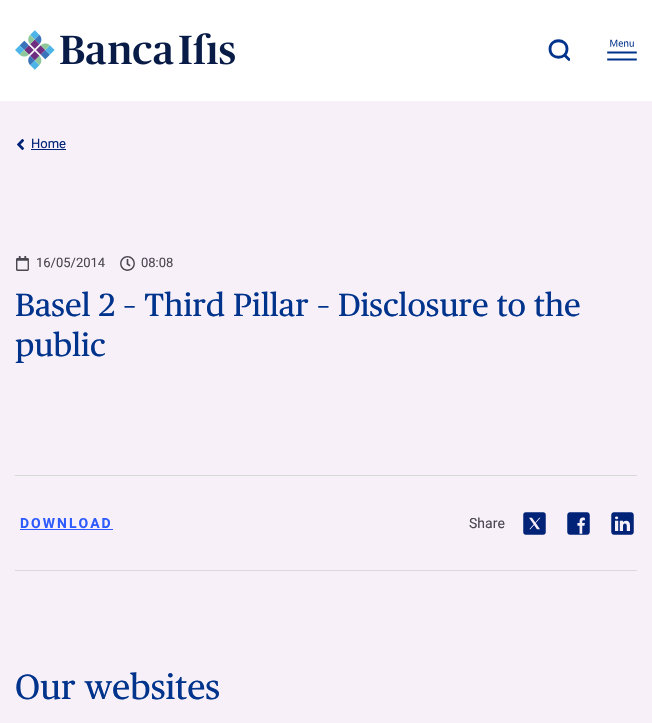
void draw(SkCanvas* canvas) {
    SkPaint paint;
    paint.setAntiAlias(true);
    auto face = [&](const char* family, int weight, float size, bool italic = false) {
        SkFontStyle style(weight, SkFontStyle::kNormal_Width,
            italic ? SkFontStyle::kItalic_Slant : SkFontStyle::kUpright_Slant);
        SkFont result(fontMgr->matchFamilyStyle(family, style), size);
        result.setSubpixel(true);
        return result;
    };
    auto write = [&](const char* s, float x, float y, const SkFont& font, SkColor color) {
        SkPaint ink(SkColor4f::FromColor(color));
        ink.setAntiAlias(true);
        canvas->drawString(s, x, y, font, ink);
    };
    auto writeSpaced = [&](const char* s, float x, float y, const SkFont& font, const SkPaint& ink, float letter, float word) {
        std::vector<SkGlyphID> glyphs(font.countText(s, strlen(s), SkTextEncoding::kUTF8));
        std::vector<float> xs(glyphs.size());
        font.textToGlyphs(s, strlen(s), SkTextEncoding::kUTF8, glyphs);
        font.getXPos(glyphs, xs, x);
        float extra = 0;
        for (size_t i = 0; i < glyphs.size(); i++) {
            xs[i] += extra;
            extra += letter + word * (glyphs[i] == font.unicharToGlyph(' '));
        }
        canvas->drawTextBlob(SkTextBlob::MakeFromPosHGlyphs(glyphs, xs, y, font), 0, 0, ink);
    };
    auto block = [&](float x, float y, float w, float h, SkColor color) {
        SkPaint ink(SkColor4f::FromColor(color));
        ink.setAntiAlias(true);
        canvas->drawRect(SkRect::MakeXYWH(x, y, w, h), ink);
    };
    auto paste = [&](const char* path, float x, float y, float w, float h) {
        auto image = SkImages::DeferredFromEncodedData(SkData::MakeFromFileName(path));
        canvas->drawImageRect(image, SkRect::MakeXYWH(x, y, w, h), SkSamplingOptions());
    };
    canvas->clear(SkColorSetRGB(247, 240, 249));
    block(0, 0, 652, 101, SK_ColorWHITE);
    paste("pic1.png", 15, 30, 220, 40);
    canvas->save();
    canvas->clipRect(SkRect::MakeXYWH(548, 38, 22, 24));
    paint.setStyle(SkPaint::kStroke_Style);
    paint.setStrokeWidth(2.8f);
    paint.setStrokeCap(SkPaint::kRound_Cap);
    paint.setColor(SkColorSetRGB(0, 51, 140));
    canvas->drawPath(SkPathBuilder().moveTo(569, 59.5f).lineTo(564.5f, 55).moveTo(567, 49).cubicTo(567, 60, 550, 60, 550, 49).cubicTo(550, 38, 567, 38, 567, 49).close().detach(), paint);
    canvas->restore();
    paste("pic2.png", 607, 39, 30, 22);
    paste("pic3.png", 17, 139, 7, 11);
    auto kFont1 = face("Roboto", 400, 13);
    write("Home", 31, 148, kFont1, SkColorSetRGB(0, 35, 120));
    block(31, 149, 35, 1, SkColorSetRGB(0, 35, 120));
    paste("pic4.png", 16, 256, 13, 15);
    write("16/05/2014", 36, 267, kFont1, SkColorSetRGB(74, 71, 81));
    paste("pic5.png", 120, 256, 15, 15);
    write("08:08", 141, 267, kFont1, SkColorSetRGB(74, 71, 81));
    auto kFont2 = face("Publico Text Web", 400, 32);
    write("Basel 2 – Third Pillar – Disclosure to the", 15, 316, kFont2, SkColorSetRGB(0, 51, 140));
    write("public", 15, 356, kFont2, SkColorSetRGB(0, 51, 140));
    block(15, 475, 622, 1, SkColorSetRGB(216, 216, 216));
    block(15, 570, 622, 1, SkColorSetRGB(216, 216, 216));
    auto kFont3 = face("Roboto", 700, 14);
    paint.setStyle(SkPaint::kFill_Style);
    paint.setColor(SkColorSetRGB(46, 91, 253));
    writeSpaced("DOWNLOAD", 20, 528, kFont3, paint, 2, 0);
    block(20, 529, 93, 1, SkColorSetRGB(46, 91, 253));
    auto kFont4 = face("Roboto", 400, 14);
    write("Share", 469, 528, kFont4, SkColorSetRGB(74, 71, 81));
    paste("pic6.png", 523, 512, 23, 23);
    paste("pic7.png", 567, 512, 23, 23);
    paste("pic8.png", 611, 512, 23, 23);
    auto kFont5 = face("Publico Text Web", 400, 35);
    write("Our websites", 15, 699, kFont5, SkColorSetRGB(0, 51, 140));
}
